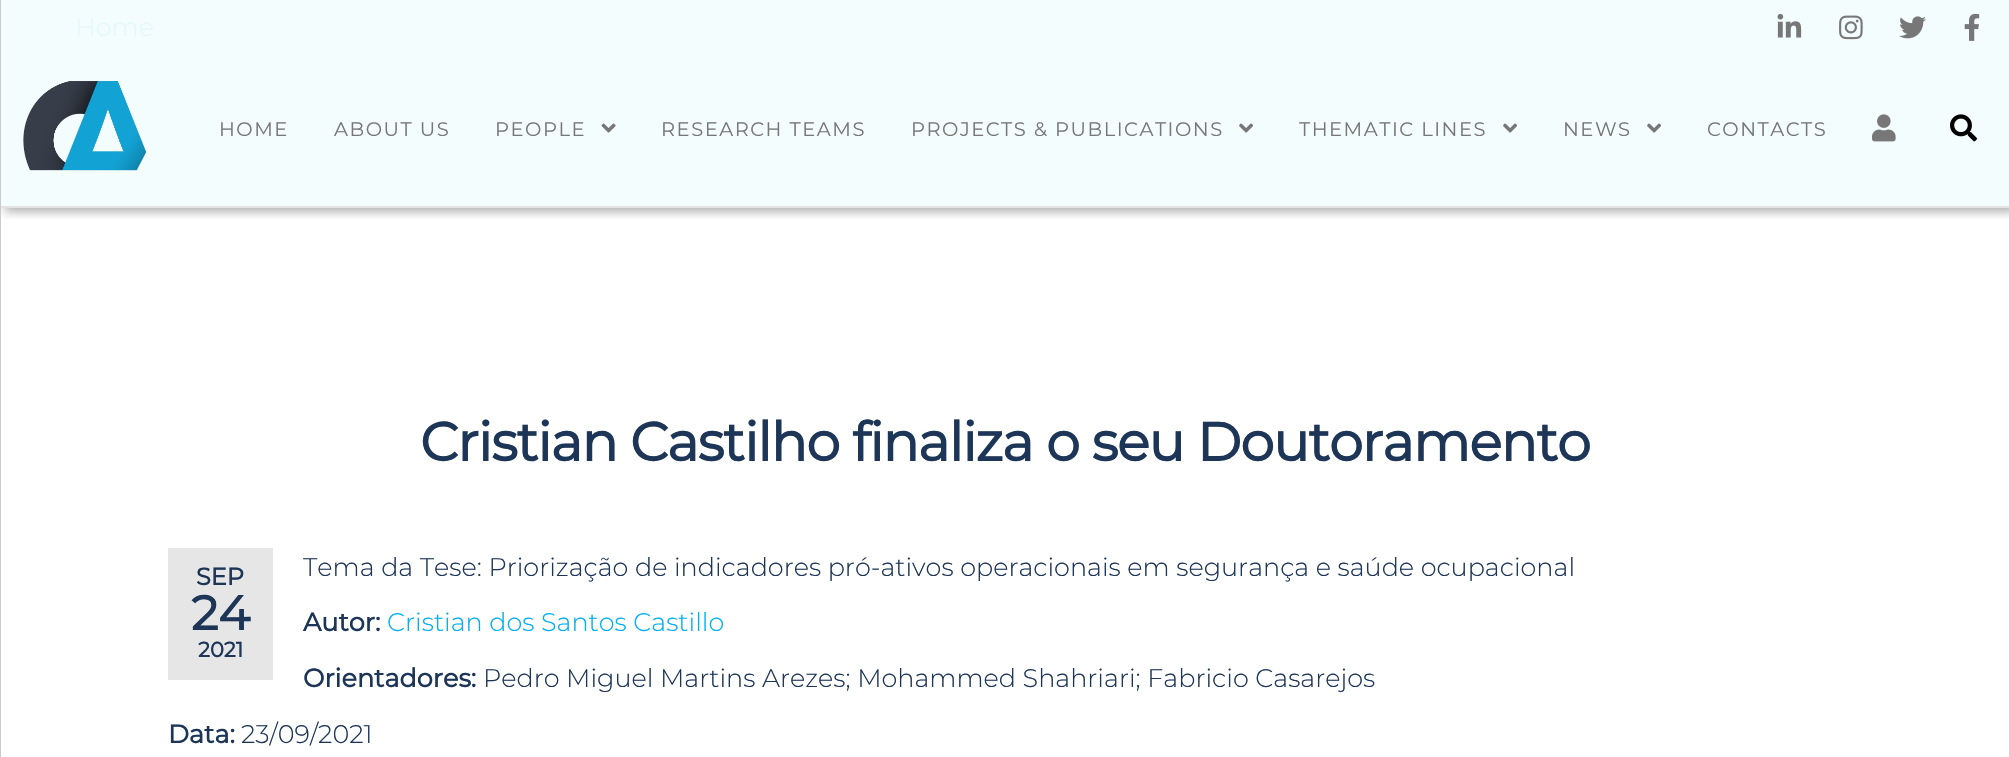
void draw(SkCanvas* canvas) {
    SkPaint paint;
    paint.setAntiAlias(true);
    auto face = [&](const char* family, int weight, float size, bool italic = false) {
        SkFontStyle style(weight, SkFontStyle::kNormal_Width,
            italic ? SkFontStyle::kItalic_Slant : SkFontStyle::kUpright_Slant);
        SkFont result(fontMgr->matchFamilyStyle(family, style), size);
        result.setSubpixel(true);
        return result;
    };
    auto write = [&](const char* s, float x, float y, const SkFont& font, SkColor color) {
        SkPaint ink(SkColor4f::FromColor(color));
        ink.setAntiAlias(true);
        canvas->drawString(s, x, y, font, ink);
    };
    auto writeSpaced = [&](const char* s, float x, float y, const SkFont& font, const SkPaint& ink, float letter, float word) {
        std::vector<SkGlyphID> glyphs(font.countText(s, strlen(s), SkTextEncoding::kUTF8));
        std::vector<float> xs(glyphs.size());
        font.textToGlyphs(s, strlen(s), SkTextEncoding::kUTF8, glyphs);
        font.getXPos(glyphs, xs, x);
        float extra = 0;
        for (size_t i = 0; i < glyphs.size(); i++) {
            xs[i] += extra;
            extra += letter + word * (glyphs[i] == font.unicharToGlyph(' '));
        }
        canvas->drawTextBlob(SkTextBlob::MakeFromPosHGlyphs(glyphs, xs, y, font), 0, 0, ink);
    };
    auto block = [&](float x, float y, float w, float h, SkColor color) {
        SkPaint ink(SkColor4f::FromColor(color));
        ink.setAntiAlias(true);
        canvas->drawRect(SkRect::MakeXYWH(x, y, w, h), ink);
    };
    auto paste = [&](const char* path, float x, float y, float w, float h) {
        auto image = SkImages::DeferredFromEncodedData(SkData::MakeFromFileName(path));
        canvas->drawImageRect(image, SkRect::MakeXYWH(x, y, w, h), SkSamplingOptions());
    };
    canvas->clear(SK_ColorWHITE);
    block(1, 0, 2008, 206, SkColorSetRGB(244, 253, 253));
    block(0, 56, 1, 2, SkColorSetRGB(242, 251, 251));
    canvas->save();
    canvas->clipRect(SkRect::MakeXYWH(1, 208, 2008, 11));
    paint.setColor(SkColorSetARGB(77, 0, 0, 0));
    paint.setMaskFilter(SkMaskFilter::MakeBlur(kNormal_SkBlurStyle, 4.5f));
    canvas->drawRect(SkRect::MakeXYWH(5, 5, 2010, 207), paint);
    paint.setMaskFilter(nullptr);
    canvas->restore();
    block(0, 206, 2009, 2, SkColorSetRGB(226, 226, 226));
    block(0, 0, 1, 757, SkColorSetRGB(203, 203, 203));
    auto kFont1 = face("Montserrat", 300, 25.5f);
    write("Home", 75, 36, kFont1, SkColorSetRGB(228, 248, 252));
    paste("pic1.png", 1777, 13, 25, 25);
    paste("pic2.png", 1839, 15, 24, 25);
    paste("pic3.png", 1899, 16, 27, 23);
    paste("pic4.png", 1964, 13, 16, 28);
    paste("pic5.png", 23, 81, 124, 90);
    auto kFont2 = face("Montserrat", 400, 19.5f);
    paint.setColor(SkColorSetRGB(119, 119, 119));
    writeSpaced("HOME", 219, 136, kFont2, paint, 1.5f, 0);
    writeSpaced("ABOUT US", 334, 136, kFont2, paint, 1.5f, 0);
    writeSpaced("PEOPLE", 495, 136, kFont2, paint, 1.5f, 0);
    paste("pic6.png", 601, 123, 15, 10);
    writeSpaced("RESEARCH TEAMS", 661, 136, kFont2, paint, 1.5f, 0);
    writeSpaced("PROJECTS & PUBLICATIONS", 911, 136, kFont2, paint, 1.5f, 0);
    paste("pic7.png", 1239, 123, 15, 10);
    writeSpaced("THEMATIC LINES", 1299, 136, kFont2, paint, 1.5f, 0);
    paste("pic7.png", 1503, 123, 15, 10);
    writeSpaced("NEWS", 1563, 136, kFont2, paint, 1.5f, 0);
    paste("pic7.png", 1647, 123, 15, 10);
    writeSpaced("CONTACTS", 1707, 136, kFont2, paint, 1.5f, 0);
    paste("pic8.png", 1872, 114, 24, 28);
    paste("pic9.png", 1950, 114, 27, 28);
    auto kFont3 = face("Montserrat", 700, 54);
    paint.setColor(SkColorSetRGB(29, 53, 87));
    writeSpaced("Cristian Castilho finaliza o seu Doutoramento", 420, 461, kFont3, paint, -1.1f, 0);
    block(168, 548, 105, 132, SkColorSetRGB(230, 230, 230));
    auto kFont4 = face("Montserrat", 700, 24);
    write("SEP", 196, 585, kFont4, SkColorSetRGB(29, 53, 87));
    auto kFont5 = face("Montserrat", 700, 48);
    write("24", 191, 630, kFont5, SkColorSetRGB(29, 53, 87));
    auto kFont6 = face("Montserrat", 700, 21);
    write("2021", 198, 657, kFont6, SkColorSetRGB(29, 53, 87));
    write("Tema da Tese: Priorização de indicadores pró-ativos operacionais em segurança e saúde ocupacional", 303, 576, kFont1, SkColorSetRGB(29, 53, 87));
    auto kFont7 = face("Montserrat", 700, 25.5f);
    write("Autor:", 303, 631, kFont7, SkColorSetRGB(29, 53, 87));
    write("Cristian dos Santos Castillo", 387, 631, kFont1, SkColorSetRGB(0, 175, 242));
    write("Orientadores:", 303, 687, kFont7, SkColorSetRGB(29, 53, 87));
    write("Pedro Miguel Martins Arezes; Mohammed Shahriari; Fabricio Casarejos", 483, 687, kFont1, SkColorSetRGB(29, 53, 87));
    write("Data:", 168, 743, kFont7, SkColorSetRGB(29, 53, 87));
    write("23/09/2021", 241, 743, kFont1, SkColorSetRGB(29, 53, 87));
}
